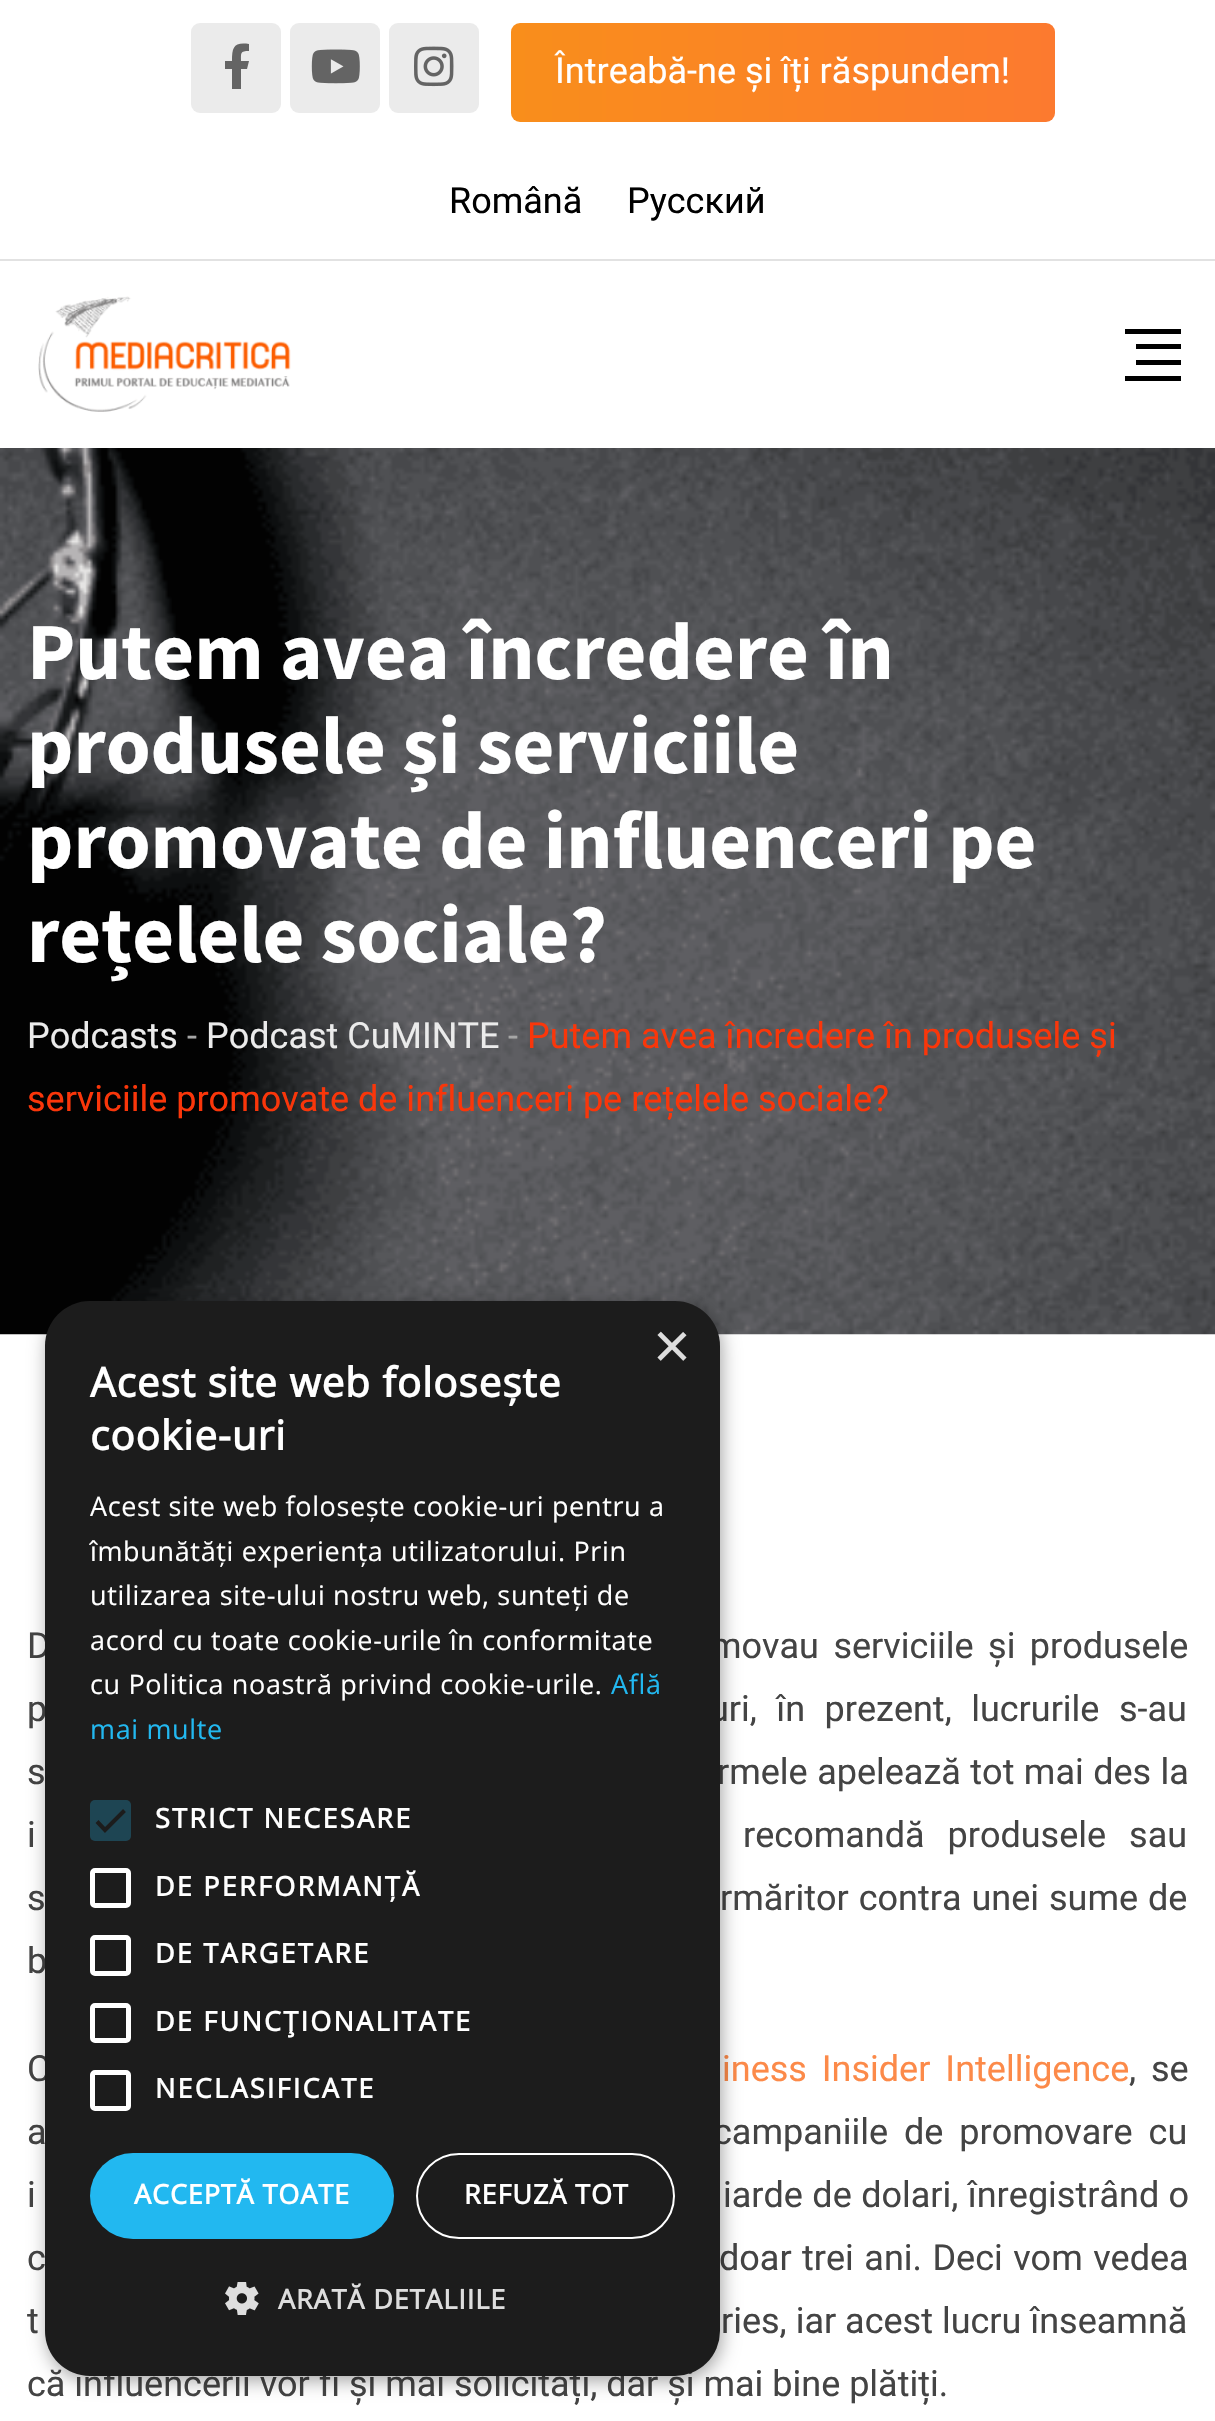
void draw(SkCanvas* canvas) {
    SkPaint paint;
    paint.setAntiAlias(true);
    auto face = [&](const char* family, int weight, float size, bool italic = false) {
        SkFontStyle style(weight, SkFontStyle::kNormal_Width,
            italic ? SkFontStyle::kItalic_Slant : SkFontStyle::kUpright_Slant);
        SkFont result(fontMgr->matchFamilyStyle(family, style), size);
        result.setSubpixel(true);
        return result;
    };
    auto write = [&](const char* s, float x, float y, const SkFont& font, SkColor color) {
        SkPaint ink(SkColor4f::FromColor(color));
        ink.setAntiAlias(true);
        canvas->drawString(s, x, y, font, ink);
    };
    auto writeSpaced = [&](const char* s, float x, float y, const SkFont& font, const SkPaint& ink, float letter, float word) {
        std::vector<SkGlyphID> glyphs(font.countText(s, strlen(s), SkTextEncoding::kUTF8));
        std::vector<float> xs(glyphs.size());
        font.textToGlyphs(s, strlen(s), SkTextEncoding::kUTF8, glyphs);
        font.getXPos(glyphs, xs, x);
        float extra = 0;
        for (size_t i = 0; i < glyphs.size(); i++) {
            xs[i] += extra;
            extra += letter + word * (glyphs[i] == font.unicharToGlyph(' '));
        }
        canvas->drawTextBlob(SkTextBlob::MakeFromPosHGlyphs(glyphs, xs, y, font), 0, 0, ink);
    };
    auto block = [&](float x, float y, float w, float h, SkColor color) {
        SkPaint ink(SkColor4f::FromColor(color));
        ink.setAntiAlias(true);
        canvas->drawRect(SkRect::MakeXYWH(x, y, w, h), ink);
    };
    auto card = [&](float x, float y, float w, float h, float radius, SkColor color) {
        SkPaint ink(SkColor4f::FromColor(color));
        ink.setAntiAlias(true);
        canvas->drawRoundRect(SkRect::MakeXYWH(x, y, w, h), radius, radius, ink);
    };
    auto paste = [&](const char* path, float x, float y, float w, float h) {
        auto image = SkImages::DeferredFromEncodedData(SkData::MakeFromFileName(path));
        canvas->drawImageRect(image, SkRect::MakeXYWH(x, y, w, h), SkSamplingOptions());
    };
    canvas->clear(SK_ColorWHITE);
    block(0, 259, 1215, 2, SkColorSetRGB(226, 226, 226));
    card(191, 23, 90, 90, 9, SkColorSetRGB(235, 235, 235));
    paint.setColor(SkColorSetRGB(100, 100, 100));
    canvas->drawPath(SkPathBuilder().moveTo(247, 69).lineTo(241, 69).lineTo(241, 89).lineTo(232, 89).lineTo(232, 69).lineTo(225, 69).lineTo(225, 61).lineTo(232, 61).cubicTo(232, 47, 234, 42, 249, 44).lineTo(249, 51).cubicTo(240, 51, 241, 53, 241, 61).lineTo(249, 61).close().detach(), paint);
    card(290, 23, 90, 90, 9, SkColorSetRGB(235, 235, 235));
    paste("pic1.png", 311, 49, 49, 35);
    card(389, 23, 90, 90, 9, SkColorSetRGB(235, 235, 235));
    paste("pic2.png", 414, 46, 40, 41);
    {
        const SkColor colors[] = {SkColorSetRGB(249, 142, 27), SkColorSetRGB(252, 122, 47)};
        const float stops[] = {0, 1};
        const SkPoint ends[] = {{511, 72}, {1055, 72}};
        paint.setShader(SkGradientShader::MakeLinear(ends, colors, stops, 2, SkTileMode::kClamp));
        paint.setAlpha(255);
    }
    canvas->drawRoundRect(SkRect::MakeXYWH(511, 23, 544, 99), 9, 9, paint);
    auto kFont1 = face("Roboto", 400, 36);
    write("Întreabă-ne și îți răspundem!", 555, 83, kFont1, SK_ColorWHITE);
    write("Română", 449, 213, kFont1, SK_ColorBLACK);
    write("Русский", 627, 213, kFont1, SK_ColorBLACK);
    paste("pic3.png", 38, 296, 253, 116);
    block(1125, 329, 56, 5, SK_ColorBLACK);
    block(1136, 344, 45, 5, SK_ColorBLACK);
    block(1136, 360, 45, 5, SK_ColorBLACK);
    block(1125, 376, 56, 5, SK_ColorBLACK);
    paste("pic4.png", 0, 448, 1215, 887);
    auto kFont2 = face("Source Sans Pro", 700, 81);
    write("Putem avea încredere în", 27, 679, kFont2, SK_ColorWHITE);
    write("produsele și serviciile", 27, 773, kFont2, SK_ColorWHITE);
    write("promovate de influenceri pe", 27, 868, kFont2, SK_ColorWHITE);
    write("rețelele sociale?", 27, 962, kFont2, SK_ColorWHITE);
    write("Podcasts", 27, 1048, kFont1, SkColorSetRGB(235, 235, 235));
    write("-", 187, 1048, kFont1, SkColorSetRGB(166, 166, 166));
    write("Podcast CuMINTE", 206, 1048, kFont1, SkColorSetRGB(235, 235, 235));
    write("-", 508, 1048, kFont1, SkColorSetRGB(166, 166, 166));
    write("Putem avea încredere în produsele și", 527, 1048, kFont1, SkColorSetRGB(250, 54, 10));
    write("serviciile promovate de influenceri pe rețelele sociale?", 27, 1111, kFont1, SkColorSetRGB(250, 54, 10));
    paint.setShader(nullptr);
    paint.setColor(SkColorSetRGB(68, 68, 68));
    writeSpaced("D", 27, 1658, kFont1, paint, 0, 5.5f);
    writeSpaced("movau serviciile și produsele", 710, 1658, kFont1, paint, 0, 5.5f);
    writeSpaced("p", 27, 1721, kFont1, paint, 0, 10.5f);
    writeSpaced("uri, în prezent, lucrurile s-au", 709, 1721, kFont1, paint, 0, 10.5f);
    writeSpaced("s", 27, 1784, kFont1, paint, 0, 0.5f);
    writeSpaced("rmele apelează tot mai des la", 717, 1784, kFont1, paint, 0, 0.5f);
    writeSpaced("i", 27, 1847, kFont1, paint, 0, 14);
    writeSpaced("recomandă produsele sau", 743, 1847, kFont1, paint, 0, 14);
    writeSpaced("s", 27, 1910, kFont1, paint, 0, 1);
    writeSpaced("rmăritor contra unei sume de", 720, 1910, kFont1, paint, 0, 1);
    write("b", 27, 1973, kFont1, SkColorSetRGB(68, 68, 68));
    writeSpaced("C", 27, 2081, kFont1, paint, 0, 6);
    paint.setColor(SkColorSetRGB(252, 138, 73));
    writeSpaced("iness Insider Intelligence", 722, 2081, kFont1, paint, 0, 6);
    paint.setColor(SkColorSetRGB(68, 68, 68));
    writeSpaced(", se", 1129, 2081, kFont1, paint, 0, 6);
    writeSpaced("a", 27, 2144, kFont1, paint, 0, 7);
    writeSpaced("campaniile de promovare cu", 713, 2144, kFont1, paint, 0, 7);
    writeSpaced("i", 27, 2207, kFont1, paint, 0, 0.5f);
    writeSpaced("iarde de dolari, înregistrând o", 723, 2207, kFont1, paint, 0, 0.5f);
    writeSpaced("c", 27, 2270, kFont1, paint, 0, 1.5f);
    writeSpaced("doar trei ani. Deci vom vedea", 719, 2270, kFont1, paint, 0, 1.5f);
    write("t", 27, 2333, kFont1, SkColorSetRGB(68, 68, 68));
    write("ries, iar acest lucru înseamnă", 721, 2333, kFont1, SkColorSetRGB(68, 68, 68));
    write("că influencerii vor fi și mai solicitați, dar și mai bine plătiți.", 27, 2396, kFont1, SkColorSetRGB(68, 68, 68));
    paint.setColor(SkColorSetARGB(89, 0, 0, 0));
    paint.setMaskFilter(SkMaskFilter::MakeBlur(kNormal_SkBlurStyle, 9));
    canvas->drawRoundRect(SkRect::MakeXYWH(47, 1305, 675, 1076), 45, 45, paint);
    paint.setMaskFilter(nullptr);
    card(45, 1301, 675, 1075, 45, SkColorSetRGB(28, 28, 28));
    auto kFont3 = face("Liberation Sans", 400, 65);
    write("×", 653, 1368, kFont3, SkColorSetRGB(221, 221, 221));
    auto kFont4 = face("Open Sans", 700, 40.5f);
    paint.setColor(SK_ColorWHITE);
    writeSpaced("Acest site web folosește", 90, 1397, kFont4, paint, 0.9f, 0);
    writeSpaced("cookie-uri", 90, 1450, kFont4, paint, 0.9f, 0);
    auto kFont5 = face("Open Sans", 400, 27);
    writeSpaced("Acest site web folosește cookie-uri pentru a", 90, 1516, kFont5, paint, 0.65f, 0);
    writeSpaced("îmbunătăți experiența utilizatorului. Prin", 90, 1561, kFont5, paint, 0.65f, 0);
    writeSpaced("utilizarea site-ului nostru web, sunteți de", 90, 1605, kFont5, paint, 0.65f, 0);
    writeSpaced("acord cu toate cookie-urile în conformitate", 90, 1650, kFont5, paint, 0.65f, 0);
    writeSpaced("cu Politica noastră privind cookie-urile.", 90, 1694, kFont5, paint, 0.65f, 0);
    paint.setColor(SkColorSetRGB(34, 184, 240));
    writeSpaced("Află", 611, 1694, kFont5, paint, 0.65f, 0);
    writeSpaced("mai multe", 90, 1739, kFont5, paint, 0.65f, 0);
    card(90, 1800, 41, 41, 5, SkColorSetRGB(30, 69, 83));
    paint.setStyle(SkPaint::kStroke_Style);
    paint.setStrokeWidth(4.1f);
    paint.setColor(SkColorSetRGB(28, 28, 28));
    canvas->drawPath(SkPathBuilder().moveTo(97, 1821.5f).lineTo(105, 1830).lineTo(124.5f, 1810.5f).detach(), paint);
    auto kFont6 = face("Open Sans", 700, 27);
    paint.setStyle(SkPaint::kFill_Style);
    paint.setColor(SK_ColorWHITE);
    writeSpaced("STRICT NECESARE", 155, 1828, kFont6, paint, 2.25f, 0);
    paint.setStyle(SkPaint::kStroke_Style);
    paint.setStrokeWidth(5);
    canvas->drawRoundRect(SkRect::MakeXYWH(92.5f, 1870.5f, 36, 35), 2.5f, 2.5f, paint);
    paint.setStyle(SkPaint::kFill_Style);
    writeSpaced("DE PERFORMANȚĂ", 155, 1896, kFont6, paint, 2.25f, 0);
    paint.setStyle(SkPaint::kStroke_Style);
    canvas->drawRoundRect(SkRect::MakeXYWH(92.5f, 1937.5f, 36, 36), 2.5f, 2.5f, paint);
    paint.setStyle(SkPaint::kFill_Style);
    writeSpaced("DE TARGETARE", 155, 1963, kFont6, paint, 2.25f, 0);
    paint.setStyle(SkPaint::kStroke_Style);
    canvas->drawRoundRect(SkRect::MakeXYWH(92.5f, 2005.5f, 36, 35), 2.5f, 2.5f, paint);
    paint.setStyle(SkPaint::kFill_Style);
    writeSpaced("DE FUNCŢIONALITATE", 155, 2031, kFont6, paint, 2.25f, 0);
    paint.setStyle(SkPaint::kStroke_Style);
    canvas->drawRoundRect(SkRect::MakeXYWH(92.5f, 2072.5f, 36, 36), 2.5f, 2.5f, paint);
    paint.setStyle(SkPaint::kFill_Style);
    writeSpaced("NECLASIFICATE", 155, 2098, kFont6, paint, 2.25f, 0);
    card(90, 2153, 304, 86, 43, SkColorSetRGB(34, 184, 240));
    writeSpaced("ACCEPTĂ TOATE", 134, 2204, kFont6, paint, 0.9f, 0);
    paint.setStyle(SkPaint::kStroke_Style);
    paint.setStrokeWidth(2);
    canvas->drawRoundRect(SkRect::MakeXYWH(417, 2154, 257, 84), 42, 42, paint);
    paint.setStyle(SkPaint::kFill_Style);
    writeSpaced("REFUZĂ TOT", 464, 2204, kFont6, paint, 0.9f, 0);
    paste("pic5.png", 225, 2282, 34, 33);
    paint.setColor(SkColorSetRGB(221, 221, 221));
    writeSpaced("ARATĂ DETALIILE", 278, 2309, kFont6, paint, 0.9f, 0);
}
